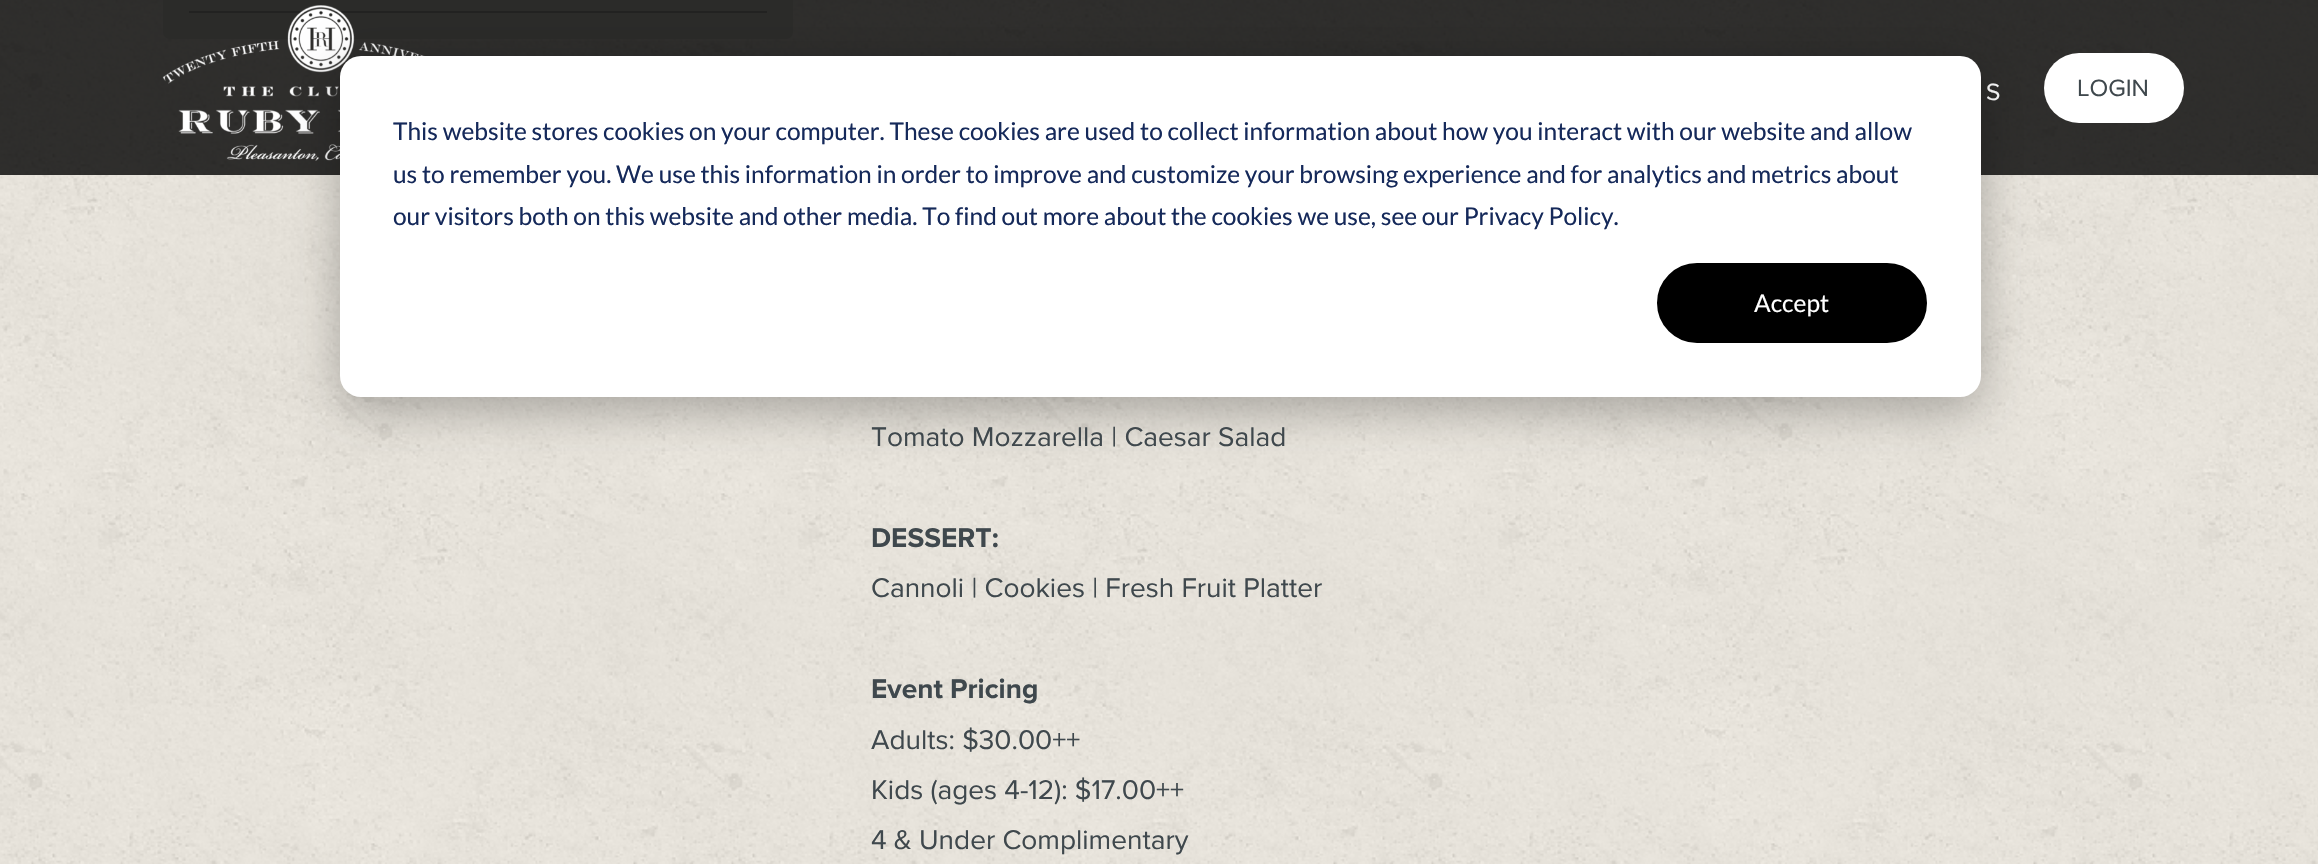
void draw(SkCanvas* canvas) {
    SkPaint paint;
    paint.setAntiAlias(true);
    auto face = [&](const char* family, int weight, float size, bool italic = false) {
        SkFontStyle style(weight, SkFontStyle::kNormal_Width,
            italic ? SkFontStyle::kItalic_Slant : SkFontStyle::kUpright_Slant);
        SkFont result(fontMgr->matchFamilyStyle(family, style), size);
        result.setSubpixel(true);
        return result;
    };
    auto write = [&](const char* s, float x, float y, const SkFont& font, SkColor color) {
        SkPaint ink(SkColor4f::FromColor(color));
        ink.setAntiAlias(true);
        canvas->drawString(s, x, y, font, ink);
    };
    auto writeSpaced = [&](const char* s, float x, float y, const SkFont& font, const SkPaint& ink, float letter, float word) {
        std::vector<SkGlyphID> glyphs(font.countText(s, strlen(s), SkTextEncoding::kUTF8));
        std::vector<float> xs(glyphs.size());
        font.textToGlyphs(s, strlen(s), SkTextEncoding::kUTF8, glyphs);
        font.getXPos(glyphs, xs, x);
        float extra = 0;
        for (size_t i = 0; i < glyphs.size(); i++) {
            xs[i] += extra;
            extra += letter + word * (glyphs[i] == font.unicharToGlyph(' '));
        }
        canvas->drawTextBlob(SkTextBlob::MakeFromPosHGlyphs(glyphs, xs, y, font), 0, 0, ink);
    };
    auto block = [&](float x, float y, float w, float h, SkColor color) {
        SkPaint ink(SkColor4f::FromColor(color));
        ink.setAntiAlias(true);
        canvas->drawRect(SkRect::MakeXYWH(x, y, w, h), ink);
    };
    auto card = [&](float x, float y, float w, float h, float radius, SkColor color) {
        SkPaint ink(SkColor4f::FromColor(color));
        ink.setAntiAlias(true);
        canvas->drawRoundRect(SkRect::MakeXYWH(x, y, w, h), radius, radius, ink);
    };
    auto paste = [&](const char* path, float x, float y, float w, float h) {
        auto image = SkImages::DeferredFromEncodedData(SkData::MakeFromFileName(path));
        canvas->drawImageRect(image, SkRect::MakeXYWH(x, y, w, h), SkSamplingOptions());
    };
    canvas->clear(SK_ColorWHITE);
    paste("pic2.png", 0, 0, 2318, 864);
    card(163, -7, 630, 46, 7, SkColorSetRGB(213, 211, 204));
    block(189, 11, 578, 2, SkColorSetRGB(170, 169, 163));
    block(0, 0, 2318, 175, SkColorSetARGB(204, 0, 0, 0));
    paste("pic1.png", 162, 5, 263, 156);
    auto kFont1 = face("Proxima Nova", 400, 24.5f);
    paint.setColor(SK_ColorWHITE);
    writeSpaced("S", 1986, 100, kFont1, paint, 1, 0);
    card(2044, 53, 140, 70, 35, SK_ColorWHITE);
    write("LOGIN", 2077, 96, kFont1, SkColorSetRGB(63, 72, 77));
    paint.setColor(SkColorSetARGB(71, 0, 0, 0));
    paint.setMaskFilter(SkMaskFilter::MakeBlur(kNormal_SkBlurStyle, 24.5f));
    canvas->drawRoundRect(SkRect::MakeXYWH(340, 70, 1641, 341), 21, 21, paint);
    paint.setMaskFilter(nullptr);
    card(340, 56, 1641, 341, 21, SK_ColorWHITE);
    auto kFont2 = face("Lato", 400, 24.5f);
    write("This website stores cookies on your computer. These cookies are used to collect information about how you interact with our website and allow", 393, 140, kFont2, SkColorSetRGB(21, 41, 90));
    write("us to remember you. We use this information in order to improve and customize your browsing experience and for analytics and metrics about", 393, 183, kFont2, SkColorSetRGB(21, 41, 90));
    write("our visitors both on this website and other media. To find out more about the cookies we use, see our Privacy Policy.", 393, 225, kFont2, SkColorSetRGB(21, 41, 90));
    paint.setColor(SK_ColorBLACK);
    canvas->drawRoundRect(SkRect::MakeXYWH(1658, 264, 268, 78), 39, 39, paint);
    paint.setStyle(SkPaint::kStroke_Style);
    paint.setStrokeWidth(2);
    canvas->drawRoundRect(SkRect::MakeXYWH(1658, 264, 268, 78), 39, 39, paint);
    write("Accept", 1754, 312, kFont2, SK_ColorWHITE);
    auto kFont3 = face("Proxima Nova", 400, 28);
    write("Tomato Mozzarella | Caesar Salad", 871, 446, kFont3, SkColorSetRGB(63, 72, 77));
    auto kFont4 = face("Proxima Nova", 700, 28);
    write("DESSERT:", 871, 547, kFont4, SkColorSetRGB(63, 72, 77));
    write("Cannoli | Cookies | Fresh Fruit Platter", 871, 597, kFont3, SkColorSetRGB(63, 72, 77));
    write("Event Pricing", 871, 698, kFont4, SkColorSetRGB(63, 72, 77));
    write("Adults: $30.00++", 871, 749, kFont3, SkColorSetRGB(63, 72, 77));
    write("Kids (ages 4-12): $17.00++", 871, 799, kFont3, SkColorSetRGB(63, 72, 77));
    write("4 & Under Complimentary", 871, 849, kFont3, SkColorSetRGB(63, 72, 77));
}
